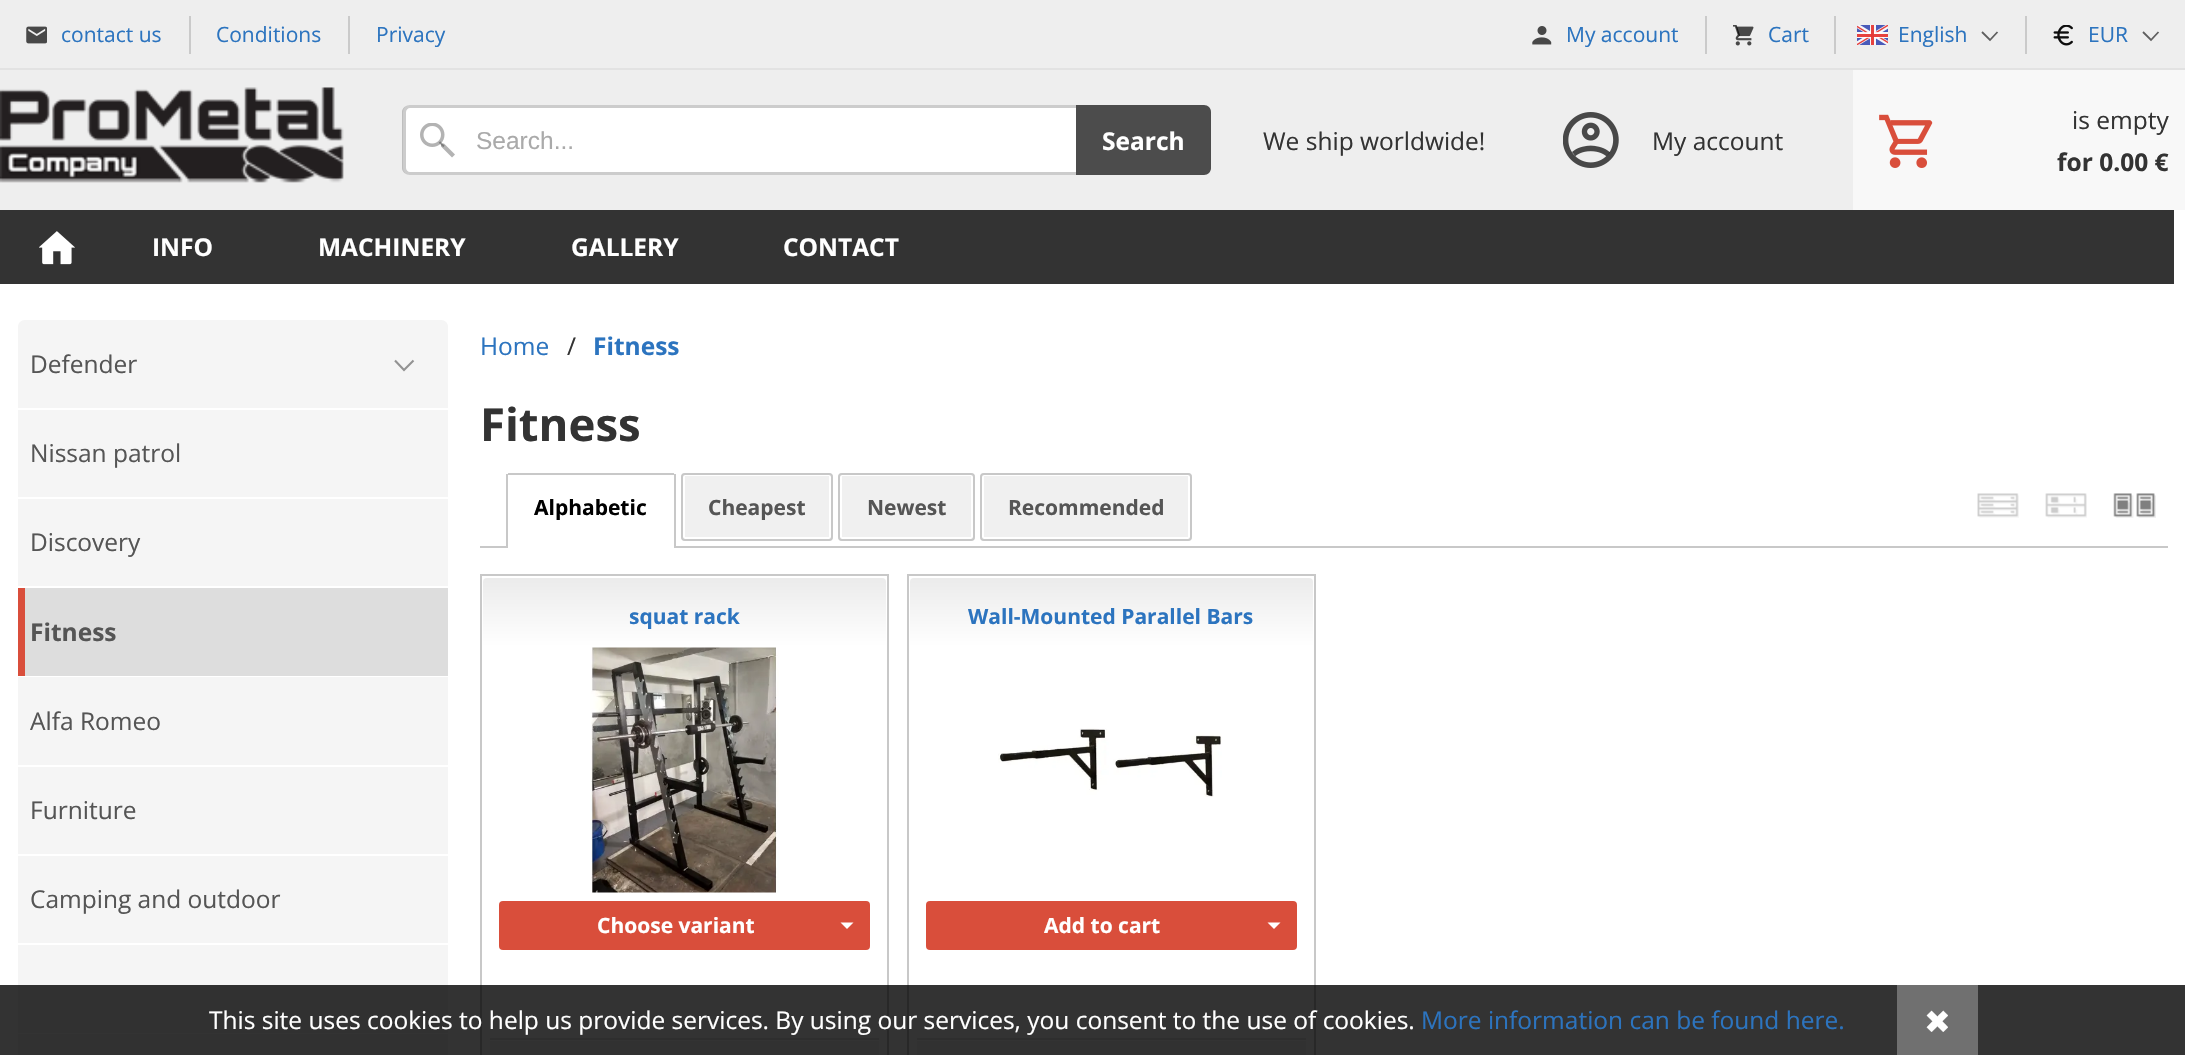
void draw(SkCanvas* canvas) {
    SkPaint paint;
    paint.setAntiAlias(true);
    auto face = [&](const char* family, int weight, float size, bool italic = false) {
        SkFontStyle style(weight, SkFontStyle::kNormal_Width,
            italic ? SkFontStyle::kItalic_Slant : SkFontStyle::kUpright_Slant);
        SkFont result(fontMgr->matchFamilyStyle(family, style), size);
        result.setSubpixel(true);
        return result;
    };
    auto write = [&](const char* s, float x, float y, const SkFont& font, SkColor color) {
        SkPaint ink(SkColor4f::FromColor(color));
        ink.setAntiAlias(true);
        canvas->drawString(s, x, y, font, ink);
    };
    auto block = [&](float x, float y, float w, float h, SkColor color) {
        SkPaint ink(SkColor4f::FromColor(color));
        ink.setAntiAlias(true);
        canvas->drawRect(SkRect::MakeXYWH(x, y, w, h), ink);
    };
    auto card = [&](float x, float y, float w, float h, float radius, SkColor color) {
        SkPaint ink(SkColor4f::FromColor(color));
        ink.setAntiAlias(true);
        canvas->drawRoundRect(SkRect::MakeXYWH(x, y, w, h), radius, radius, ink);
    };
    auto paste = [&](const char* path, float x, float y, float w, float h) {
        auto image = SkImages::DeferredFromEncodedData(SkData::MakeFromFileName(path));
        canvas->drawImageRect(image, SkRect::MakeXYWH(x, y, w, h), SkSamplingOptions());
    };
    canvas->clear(SK_ColorWHITE);
    block(0, 0, 2185, 68, SkColorSetRGB(238, 238, 238));
    block(0, 68, 2185, 2, SkColorSetRGB(226, 226, 226));
    paste("pic1.png", 26, 26, 21, 18);
    auto kFont1 = face("Open Sans", 400, 21);
    write("contact us", 61, 42, kFont1, SkColorSetRGB(44, 116, 191));
    block(189, 16, 2, 38, SkColorSetRGB(202, 202, 202));
    write("Conditions", 216, 42, kFont1, SkColorSetRGB(44, 116, 191));
    block(348, 16, 2, 38, SkColorSetRGB(202, 202, 202));
    write("Privacy", 376, 42, kFont1, SkColorSetRGB(44, 116, 191));
    paste("pic2.png", 1532, 26, 20, 19);
    write("My account", 1566, 42, kFont1, SkColorSetRGB(44, 116, 191));
    block(1705, 16, 2, 38, SkColorSetRGB(202, 202, 202));
    paste("pic3.png", 1733, 25, 21, 21);
    write("Cart", 1768, 42, kFont1, SkColorSetRGB(44, 116, 191));
    block(1834, 16, 2, 38, SkColorSetRGB(202, 202, 202));
    paste("pic4.png", 1857, 25, 31, 20);
    write("English", 1898, 42, kFont1, SkColorSetRGB(44, 116, 191));
    paint.setStyle(SkPaint::kStroke_Style);
    paint.setStrokeWidth(1.8f);
    paint.setColor(SkColorSetRGB(95, 95, 95));
    canvas->drawPath(SkPathBuilder().moveTo(1997.5f, 32).lineTo(1990, 40).lineTo(1982, 32).detach(), paint);
    block(2025, 16, 2, 38, SkColorSetRGB(202, 202, 202));
    paste("pic5.png", 2053, 25, 20, 21);
    write("EUR", 2088, 42, kFont1, SkColorSetRGB(44, 116, 191));
    canvas->drawPath(SkPathBuilder().moveTo(2158.5f, 32).lineTo(2151, 40).lineTo(2143, 32).detach(), paint);
    block(0, 70, 1853, 140, SkColorSetRGB(238, 238, 238));
    paste("pic6.png", 0, 87, 344, 96);
    card(403, 105, 808, 70, 7, SK_ColorWHITE);
    paint.setStyle(SkPaint::kFill_Style);
    paint.setColor(SkColorSetARGB(51, 0, 0, 0));
    canvas->drawPath(SkPathBuilder(SkPathFillType::kEvenOdd).moveTo(410, 105).lineTo(1076, 105).lineTo(1076, 175).lineTo(410, 175).cubicTo(406, 175, 402, 172, 402, 168).lineTo(402, 112).cubicTo(402, 108, 406, 105, 410, 105).close().moveTo(410, 108).lineTo(1076, 108).lineTo(1076, 172).lineTo(410, 172).cubicTo(408, 172, 406, 170, 406, 168).lineTo(406, 112).cubicTo(406, 110, 408, 108, 410, 108).close().detach(), paint);
    paste("pic7.png", 420, 123, 35, 35);
    auto kFont2 = face("Liberation Sans", 400, 24.5f);
    write("Search...", 476, 149, kFont2, SkColorSetRGB(170, 170, 170));
    paint.setColor(SkColorSetARGB(179, 0, 0, 0));
    canvas->drawPath(SkPathBuilder().moveTo(1076, 105).lineTo(1204, 105).cubicTo(1208, 105, 1211, 108, 1211, 112).lineTo(1211, 168).cubicTo(1211, 172, 1208, 175, 1204, 175).lineTo(1076, 175).close().detach(), paint);
    auto kFont3 = face("Open Sans", 700, 24.5f);
    write("Search", 1102, 150, kFont3, SK_ColorWHITE);
    auto kFont4 = face("Open Sans", 400, 24.5f);
    write("We ship worldwide!", 1263, 150, kFont4, SkColorSetRGB(51, 51, 51));
    paste("pic8.png", 1563, 112, 56, 56);
    write("My account", 1652, 150, kFont4, SkColorSetRGB(51, 51, 51));
    block(1853, 70, 332, 140, SkColorSetRGB(248, 248, 248));
    paste("pic9.png", 1879, 114, 54, 54);
    write("is empty", 2072, 129, kFont4, SkColorSetRGB(51, 51, 51));
    write("for 0.00 €", 2057, 171, kFont3, SkColorSetRGB(51, 51, 51));
    block(0, 210, 2174, 74, SkColorSetRGB(51, 51, 51));
    paste("pic10.png", 39, 231, 36, 34);
    write("INFO", 152, 256, kFont3, SK_ColorWHITE);
    write("MACHINERY", 318, 256, kFont3, SK_ColorWHITE);
    write("GALLERY", 571, 256, kFont3, SK_ColorWHITE);
    write("CONTACT", 783, 256, kFont3, SK_ColorWHITE);
    paint.setColor(SkColorSetRGB(245, 245, 245));
    canvas->drawPath(SkPathBuilder().moveTo(25, 320).lineTo(441, 320).cubicTo(445, 320, 448, 323, 448, 327).lineTo(448, 408).lineTo(18, 408).lineTo(18, 327).cubicTo(18, 323, 21, 320, 25, 320).close().detach(), paint);
    write("Defender", 30, 373, kFont4, SkColorSetRGB(85, 85, 85));
    paint.setStyle(SkPaint::kStroke_Style);
    paint.setStrokeWidth(2.1f);
    paint.setColor(SkColorSetRGB(147, 147, 147));
    canvas->drawPath(SkPathBuilder().moveTo(413.5f, 360.5f).lineTo(404, 370).lineTo(395, 360.5f).detach(), paint);
    block(18, 410, 430, 87, SkColorSetRGB(245, 245, 245));
    write("Nissan patrol", 30, 462, kFont4, SkColorSetRGB(85, 85, 85));
    block(18, 499, 430, 87, SkColorSetRGB(245, 245, 245));
    write("Discovery", 30, 551, kFont4, SkColorSetRGB(85, 85, 85));
    block(25, 588, 423, 88, SkColorSetRGB(221, 221, 221));
    block(18, 588, 7, 88, SkColorSetRGB(217, 78, 59));
    write("Fitness", 30, 641, kFont3, SkColorSetRGB(85, 85, 85));
    block(18, 677, 430, 88, SkColorSetRGB(245, 245, 245));
    write("Alfa Romeo", 30, 730, kFont4, SkColorSetRGB(85, 85, 85));
    block(18, 767, 430, 87, SkColorSetRGB(245, 245, 245));
    write("Furniture", 30, 819, kFont4, SkColorSetRGB(85, 85, 85));
    block(18, 856, 430, 87, SkColorSetRGB(245, 245, 245));
    write("Camping and outdoor", 30, 908, kFont4, SkColorSetRGB(85, 85, 85));
    block(18, 945, 430, 88, SkColorSetRGB(245, 245, 245));
    block(18, 1034, 430, 21, SkColorSetRGB(245, 245, 245));
    write("Home", 480, 355, kFont4, SkColorSetRGB(44, 116, 191));
    write("/", 567, 355, kFont4, SkColorSetRGB(51, 51, 51));
    write("Fitness", 593, 355, kFont3, SkColorSetRGB(44, 116, 191));
    auto kFont5 = face("Open Sans", 700, 45.5f);
    write("Fitness", 480, 441, kFont5, SkColorSetRGB(51, 51, 51));
    block(480, 546, 1688, 2, SkColorSetRGB(200, 200, 200));
    paint.setStyle(SkPaint::kFill_Style);
    paint.setColor(SK_ColorWHITE);
    canvas->drawPath(SkPathBuilder().moveTo(510, 473).lineTo(672, 473).cubicTo(674, 473, 676, 475, 676, 477).lineTo(676, 548).lineTo(506, 548).lineTo(506, 477).cubicTo(506, 475, 508, 473, 510, 473).close().detach(), paint);
    block(508, 473, 166, 2, SkColorSetRGB(200, 200, 200));
    block(674, 474, 2, 74, SkColorSetRGB(200, 200, 200));
    block(506, 474, 2, 74, SkColorSetRGB(200, 200, 200));
    auto kFont6 = face("Open Sans", 700, 21);
    write("Alphabetic", 534, 515, kFont6, SK_ColorBLACK);
    card(681, 473, 152, 68, 4, SkColorSetRGB(240, 240, 240));
    paint.setStyle(SkPaint::kStroke_Style);
    paint.setStrokeWidth(2);
    canvas->drawRoundRect(SkRect::MakeXYWH(684, 475, 146, 63), 1, 1, paint);
    paint.setColor(SkColorSetRGB(200, 200, 200));
    canvas->drawRoundRect(SkRect::MakeXYWH(682, 474, 150, 66), 3, 3, paint);
    write("Cheapest", 708, 515, kFont6, SkColorSetRGB(85, 85, 85));
    card(838, 473, 137, 68, 4, SkColorSetRGB(240, 240, 240));
    paint.setColor(SK_ColorWHITE);
    canvas->drawRoundRect(SkRect::MakeXYWH(841, 475, 131, 63), 1, 1, paint);
    paint.setColor(SkColorSetRGB(200, 200, 200));
    canvas->drawRoundRect(SkRect::MakeXYWH(839, 474, 135, 66), 3, 3, paint);
    write("Newest", 867, 515, kFont6, SkColorSetRGB(85, 85, 85));
    card(980, 473, 212, 68, 4, SkColorSetRGB(240, 240, 240));
    paint.setColor(SK_ColorWHITE);
    canvas->drawRoundRect(SkRect::MakeXYWH(983, 475, 206, 63), 1, 1, paint);
    paint.setColor(SkColorSetRGB(200, 200, 200));
    canvas->drawRoundRect(SkRect::MakeXYWH(981, 474, 210, 66), 3, 3, paint);
    write("Recommended", 1008, 515, kFont6, SkColorSetRGB(85, 85, 85));
    paste("pic11.png", 1977, 493, 42, 25);
    paste("pic12.png", 2045, 493, 42, 25);
    paste("pic13.png", 2113, 493, 43, 25);
    canvas->drawRect(SkRect::MakeXYWH(481, 575, 407, 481), paint);
    paint.setStyle(SkPaint::kFill_Style);
    {
        const SkColor colors[] = {SkColorSetRGB(235, 235, 235), SK_ColorWHITE};
        const float stops[] = {0, 0.13f};
        const SkPoint ends[] = {{684, 578}, {684, 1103}};
        paint.setShader(SkGradientShader::MakeLinear(ends, colors, stops, 2, SkTileMode::kClamp));
        paint.setAlpha(255);
    }
    canvas->drawRoundRect(SkRect::MakeXYWH(483, 578, 403, 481), 4, 4, paint);
    write("squat rack", 629, 624, kFont6, SkColorSetRGB(44, 116, 191));
    paste("pic14.png", 590, 647, 189, 246);
    card(499, 901, 371, 49, 4, SkColorSetRGB(217, 78, 59));
    write("Choose variant", 597, 933, kFont6, SK_ColorWHITE);
    paint.setShader(nullptr);
    paint.setColor(SK_ColorWHITE);
    canvas->drawPath(SkPathBuilder().moveTo(840.5f, 922.5f).lineTo(847, 929).lineTo(853.5f, 922.5f).close().detach(), paint);
    {
        const SkColor colors[] = {SkColorSetRGB(242, 242, 242), SK_ColorWHITE};
        const float stops[] = {0, 1};
        const SkPoint ends[] = {{684, 1041}, {684, 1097}};
        paint.setShader(SkGradientShader::MakeLinear(ends, colors, stops, 2, SkTileMode::kClamp));
        paint.setAlpha(255);
    }
    canvas->drawRect(SkRect::MakeXYWH(490, 1041, 389, 14), paint);
    block(490, 1038, 389, 2, SkColorSetRGB(229, 229, 229));
    paint.setStyle(SkPaint::kStroke_Style);
    paint.setShader(nullptr);
    paint.setColor(SkColorSetRGB(200, 200, 200));
    canvas->drawRect(SkRect::MakeXYWH(908, 575, 407, 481), paint);
    paint.setStyle(SkPaint::kFill_Style);
    {
        const SkColor colors[] = {SkColorSetRGB(235, 235, 235), SK_ColorWHITE};
        const float stops[] = {0, 0.13f};
        const SkPoint ends[] = {{1111, 578}, {1111, 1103}};
        paint.setShader(SkGradientShader::MakeLinear(ends, colors, stops, 2, SkTileMode::kClamp));
        paint.setAlpha(255);
    }
    canvas->drawRoundRect(SkRect::MakeXYWH(910, 578, 403, 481), 4, 4, paint);
    write("Wall-Mounted Parallel Bars", 968, 624, kFont6, SkColorSetRGB(44, 116, 191));
    paste("pic15.png", 998, 728, 224, 69);
    card(926, 901, 371, 49, 4, SkColorSetRGB(217, 78, 59));
    write("Add to cart", 1044, 933, kFont6, SK_ColorWHITE);
    paint.setShader(nullptr);
    paint.setColor(SK_ColorWHITE);
    canvas->drawPath(SkPathBuilder().moveTo(1267.5f, 922.5f).lineTo(1274, 929).lineTo(1280.5f, 922.5f).close().detach(), paint);
    {
        const SkColor colors[] = {SkColorSetRGB(242, 242, 242), SK_ColorWHITE};
        const float stops[] = {0, 1};
        const SkPoint ends[] = {{1111, 1041}, {1111, 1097}};
        paint.setShader(SkGradientShader::MakeLinear(ends, colors, stops, 2, SkTileMode::kClamp));
        paint.setAlpha(255);
    }
    canvas->drawRect(SkRect::MakeXYWH(917, 1041, 389, 14), paint);
    block(917, 1038, 389, 2, SkColorSetRGB(229, 229, 229));
    block(0, 985, 2185, 70, SkColorSetARGB(204, 0, 0, 0));
    write("This site uses cookies to help us provide services. By using our services, you consent to the use of cookies.", 209, 1029, kFont4, SK_ColorWHITE);
    write("More information can be found here.", 1421, 1029, kFont4, SkColorSetRGB(44, 116, 191));
    block(1897, 985, 81, 70, SkColorSetRGB(112, 112, 112));
    auto kFont7 = face("DejaVu Sans", 400, 32);
    write("✖", 1924, 1033, kFont7, SK_ColorWHITE);
}
